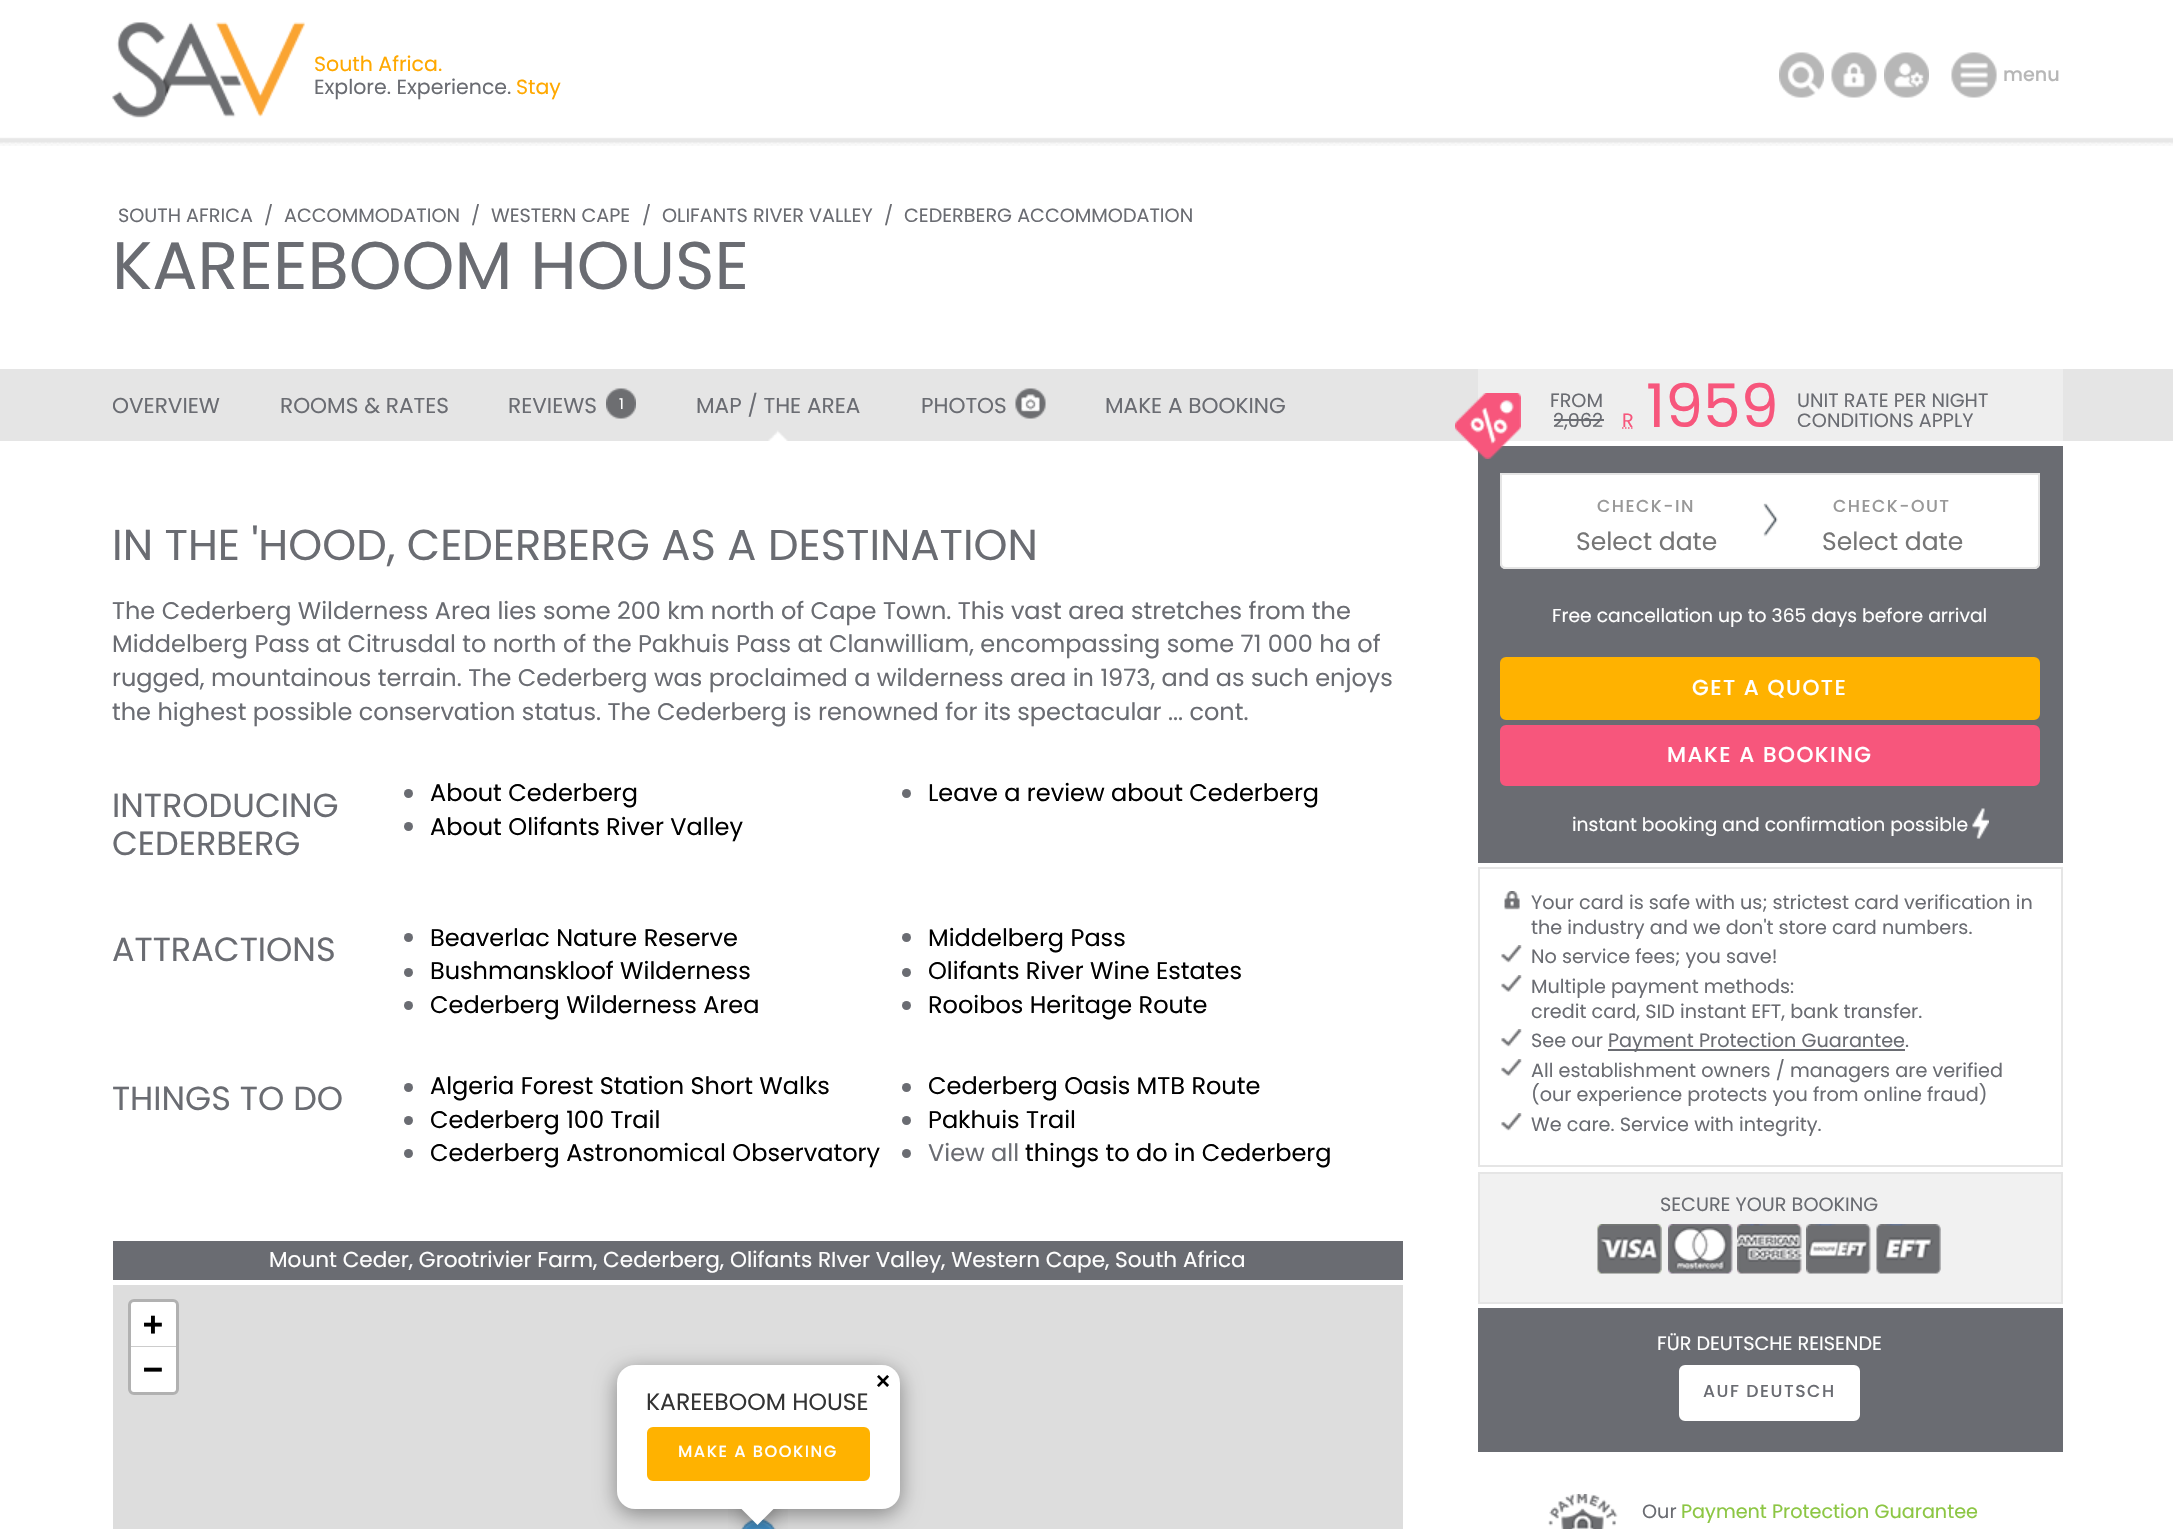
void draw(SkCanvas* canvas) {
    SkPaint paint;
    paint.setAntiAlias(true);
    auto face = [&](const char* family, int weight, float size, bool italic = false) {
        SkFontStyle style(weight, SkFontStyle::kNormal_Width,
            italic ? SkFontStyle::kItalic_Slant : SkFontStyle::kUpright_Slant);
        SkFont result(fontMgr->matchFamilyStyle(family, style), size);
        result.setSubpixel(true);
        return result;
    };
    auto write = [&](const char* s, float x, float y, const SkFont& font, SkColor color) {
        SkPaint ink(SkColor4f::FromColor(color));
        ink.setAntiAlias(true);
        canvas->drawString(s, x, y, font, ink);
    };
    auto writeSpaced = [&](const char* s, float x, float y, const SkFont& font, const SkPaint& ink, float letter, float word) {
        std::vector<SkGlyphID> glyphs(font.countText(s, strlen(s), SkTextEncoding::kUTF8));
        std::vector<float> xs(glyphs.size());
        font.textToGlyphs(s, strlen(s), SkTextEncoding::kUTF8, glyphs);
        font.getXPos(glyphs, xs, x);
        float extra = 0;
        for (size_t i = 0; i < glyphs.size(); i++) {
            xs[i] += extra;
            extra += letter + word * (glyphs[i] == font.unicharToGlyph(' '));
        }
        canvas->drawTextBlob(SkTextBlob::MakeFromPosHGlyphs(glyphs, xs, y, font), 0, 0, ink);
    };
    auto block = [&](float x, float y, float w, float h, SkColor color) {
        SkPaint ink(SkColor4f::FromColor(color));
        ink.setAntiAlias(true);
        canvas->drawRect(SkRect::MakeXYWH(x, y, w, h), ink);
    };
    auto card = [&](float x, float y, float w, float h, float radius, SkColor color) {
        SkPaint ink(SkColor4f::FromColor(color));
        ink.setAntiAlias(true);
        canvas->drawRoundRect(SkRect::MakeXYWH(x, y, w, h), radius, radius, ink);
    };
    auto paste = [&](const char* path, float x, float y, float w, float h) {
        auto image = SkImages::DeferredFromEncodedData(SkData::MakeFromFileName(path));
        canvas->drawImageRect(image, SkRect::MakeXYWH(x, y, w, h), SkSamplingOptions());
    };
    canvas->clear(SK_ColorWHITE);
    paste("pic1.png", 0, 137, 2173, 9);
    paste("pic2.png", 112, 22, 193, 96);
    auto kFont1 = face("Poppins", 400, 20.5f);
    write("South Africa.", 314, 71, kFont1, SkColorSetRGB(255, 168, 0));
    write("Explore. Experience.", 314, 94, kFont1, SkColorSetRGB(106, 108, 114));
    write("Stay", 516, 94, kFont1, SkColorSetRGB(255, 168, 0));
    paste("pic3.png", 1779, 52, 45, 46);
    paste("pic4.png", 1831, 52, 46, 46);
    paste("pic5.png", 1884, 52, 45, 46);
    paste("pic6.png", 1951, 52, 46, 46);
    auto kFont2 = face("Poppins", 500, 19.2f);
    write("menu", 2003, 81, kFont2, SkColorSetRGB(183, 183, 183));
    auto kFont3 = face("Poppins", 400, 19.2f);
    write("SOUTH AFRICA", 118, 222, kFont3, SkColorSetRGB(106, 108, 114));
    write("/", 264, 222, kFont3, SkColorSetRGB(106, 108, 114));
    write("ACCOMMODATION", 284, 222, kFont3, SkColorSetRGB(106, 108, 114));
    write("/", 471, 222, kFont3, SkColorSetRGB(106, 108, 114));
    write("WESTERN CAPE", 491, 222, kFont3, SkColorSetRGB(106, 108, 114));
    write("/", 642, 222, kFont3, SkColorSetRGB(106, 108, 114));
    write("OLIFANTS RIVER VALLEY", 662, 222, kFont3, SkColorSetRGB(106, 108, 114));
    write("/", 884, 222, kFont3, SkColorSetRGB(106, 108, 114));
    write("CEDERBERG ACCOMMODATION", 904, 222, kFont3, SkColorSetRGB(106, 108, 114));
    auto kFont4 = face("Poppins", 400, 67.25f);
    write("KAREEBOOM HOUSE", 112, 289, kFont4, SkColorSetRGB(106, 108, 114));
    auto kFont5 = face("Poppins", 400, 43.2f);
    write("IN THE 'HOOD, CEDERBERG AS A DESTINATION", 112, 560, kFont5, SkColorSetRGB(106, 108, 114));
    auto kFont6 = face("Poppins", 400, 24);
    write("The Cederberg Wilderness Area lies some 200 km north of Cape Town. This vast area stretches from the", 112, 619, kFont6, SkColorSetRGB(106, 108, 114));
    write("Middelberg Pass at Citrusdal to north of the Pakhuis Pass at Clanwilliam, encompassing some 71 000 ha of", 112, 652, kFont6, SkColorSetRGB(106, 108, 114));
    write("rugged, mountainous terrain. The Cederberg was proclaimed a wilderness area in 1973, and as such enjoys", 112, 686, kFont6, SkColorSetRGB(106, 108, 114));
    write("the highest possible conservation status. The Cederberg is renowned for its spectacular ... cont.", 112, 720, kFont6, SkColorSetRGB(106, 108, 114));
    auto kFont7 = face("Poppins", 400, 33.5f);
    write("INTRODUCING", 112, 817, kFont7, SkColorSetRGB(106, 108, 114));
    write("CEDERBERG", 112, 855, kFont7, SkColorSetRGB(106, 108, 114));
    paint.setColor(SkColorSetRGB(106, 108, 114));
    canvas->drawCircle(408.5f, 793.5f, 4.5f, paint);
    write("About Cederberg", 430, 801, kFont6, SK_ColorBLACK);
    canvas->drawCircle(906.5f, 793.5f, 4.5f, paint);
    write("Leave a review about Cederberg", 928, 801, kFont6, SK_ColorBLACK);
    canvas->drawCircle(408.5f, 826.5f, 4.5f, paint);
    write("About Olifants River Valley", 430, 835, kFont6, SK_ColorBLACK);
    write("ATTRACTIONS", 112, 961, kFont7, SkColorSetRGB(106, 108, 114));
    canvas->drawCircle(408.5f, 937.5f, 4.5f, paint);
    write("Beaverlac Nature Reserve", 430, 946, kFont6, SK_ColorBLACK);
    canvas->drawCircle(906.5f, 937.5f, 4.5f, paint);
    write("Middelberg Pass", 928, 946, kFont6, SK_ColorBLACK);
    canvas->drawCircle(408.5f, 972.5f, 4.5f, paint);
    write("Bushmanskloof Wilderness", 430, 979, kFont6, SK_ColorBLACK);
    canvas->drawCircle(906.5f, 972.5f, 4.5f, paint);
    write("Olifants River Wine Estates", 928, 979, kFont6, SK_ColorBLACK);
    canvas->drawCircle(408.5f, 1005.5f, 4.5f, paint);
    write("Cederberg Wilderness Area", 430, 1013, kFont6, SK_ColorBLACK);
    canvas->drawCircle(906.5f, 1005.5f, 4.5f, paint);
    write("Rooibos Heritage Route", 928, 1013, kFont6, SK_ColorBLACK);
    write("THINGS TO DO", 112, 1110, kFont7, SkColorSetRGB(106, 108, 114));
    canvas->drawCircle(408.5f, 1087.5f, 4.5f, paint);
    write("Algeria Forest Station Short Walks", 430, 1094, kFont6, SK_ColorBLACK);
    canvas->drawCircle(906.5f, 1087.5f, 4.5f, paint);
    write("Cederberg Oasis MTB Route", 928, 1094, kFont6, SK_ColorBLACK);
    canvas->drawCircle(408.5f, 1120.5f, 4.5f, paint);
    write("Cederberg 100 Trail", 430, 1128, kFont6, SK_ColorBLACK);
    canvas->drawCircle(906.5f, 1120.5f, 4.5f, paint);
    write("Pakhuis Trail", 928, 1128, kFont6, SK_ColorBLACK);
    canvas->drawCircle(408.5f, 1153.5f, 4.5f, paint);
    write("Cederberg Astronomical Observatory", 430, 1161, kFont6, SK_ColorBLACK);
    canvas->drawCircle(906.5f, 1153.5f, 4.5f, paint);
    write("View all", 928, 1161, kFont6, SkColorSetRGB(106, 108, 114));
    write("things to do in Cederberg", 1025, 1161, kFont6, SK_ColorBLACK);
    block(113, 1241, 1290, 39, SkColorSetRGB(106, 108, 114));
    auto kFont8 = face("Poppins", 400, 21.6f);
    write("Mount Ceder, Grootrivier Farm, Cederberg, Olifants RIver Valley, Western Cape, South Africa", 269, 1267, kFont8, SK_ColorWHITE);
    block(113, 1285, 1290, 244, SkColorSetRGB(221, 221, 221));
    paint.setStyle(SkPaint::kStroke_Style);
    paint.setStrokeWidth(3);
    paint.setColor(SkColorSetRGB(177, 177, 177));
    canvas->drawRoundRect(SkRect::MakeXYWH(129.5f, 1300.5f, 48, 93), 4.5f, 4.5f, paint);
    paint.setStyle(SkPaint::kFill_Style);
    paint.setColor(SK_ColorWHITE);
    canvas->drawPath(SkPathBuilder().moveTo(134, 1302).lineTo(173, 1302).cubicTo(174.5f, 1302, 176, 1303.5f, 176, 1305).lineTo(176, 1347).lineTo(131, 1347).lineTo(131, 1305).cubicTo(131, 1303.5f, 132.5f, 1302, 134, 1302).close().detach(), paint);
    block(131, 1346, 45, 1, SkColorSetRGB(204, 204, 204));
    auto kFont9 = face("DejaVu Sans Mono", 700, 33);
    write("+", 143, 1335, kFont9, SK_ColorBLACK);
    canvas->drawPath(SkPathBuilder().moveTo(131, 1347).lineTo(176, 1347).lineTo(176, 1389).cubicTo(176, 1390.5f, 174.5f, 1392, 173, 1392).lineTo(134, 1392).cubicTo(132.5f, 1392, 131, 1390.5f, 131, 1389).close().detach(), paint);
    write("−", 143, 1380, kFont9, SK_ColorBLACK);
    paste("pic7.png", 741, 1519, 35, 10);
    paint.setColor(SkColorSetARGB(102, 0, 0, 0));
    paint.setMaskFilter(SkMaskFilter::MakeBlur(kNormal_SkBlurStyle, 10.5f));
    canvas->drawRoundRect(SkRect::MakeXYWH(617, 1370, 283, 144), 18, 18, paint);
    paint.setMaskFilter(nullptr);
    card(617, 1365, 283, 144, 18, SK_ColorWHITE);
    auto kFont10 = face("Liberation Sans", 700, 24);
    write("×", 876, 1389, kFont10, SK_ColorBLACK);
    auto kFont11 = face("Poppins", 400, 23.5f);
    write("KAREEBOOM HOUSE", 646, 1410, kFont11, SkColorSetRGB(51, 51, 51));
    paint.setColor(SkColorSetRGB(255, 178, 0));
    canvas->drawRoundRect(SkRect::MakeXYWH(648, 1428, 221, 52), 5, 5, paint);
    paint.setStyle(SkPaint::kStroke_Style);
    paint.setStrokeWidth(2);
    canvas->drawRoundRect(SkRect::MakeXYWH(648, 1428, 221, 52), 5, 5, paint);
    auto kFont12 = face("Poppins", 500, 16.25f);
    paint.setStyle(SkPaint::kFill_Style);
    paint.setColor(SK_ColorWHITE);
    writeSpaced("MAKE A BOOKING", 678, 1457, kFont12, paint, 1.5f, 0);
    canvas->save();
    canvas->clipRect(SkRect::MakeXYWH(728, 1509, 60, 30));
    paint.setColor(SkColorSetARGB(102, 0, 0, 0));
    paint.setMaskFilter(SkMaskFilter::MakeBlur(kNormal_SkBlurStyle, 10.5f));
    canvas->drawRect(SkRect::MakeXYWH(746, 1499, 25, 25), paint);
    paint.setMaskFilter(nullptr);
    canvas->restore();
    canvas->save();
    canvas->clipRect(SkRect::MakeXYWH(728, 1509, 60, 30));
    paint.setColor(SK_ColorWHITE);
    canvas->drawPath(SkPathBuilder().moveTo(757.5f, 1489).lineTo(775.5f, 1507).lineTo(757.5f, 1525).lineTo(739.5f, 1507).close().detach(), paint);
    canvas->restore();
    block(0, 369, 2173, 72, SkColorSetRGB(229, 229, 229));
    block(1478, 369, 585, 72, SkColorSetRGB(238, 238, 238));
    block(1478, 446, 585, 417, SkColorSetRGB(106, 108, 114));
    paste("pic8.png", 1455, 393, 66, 66);
    write("FROM", 1550, 407, kFont3, SkColorSetRGB(106, 108, 114));
    write("2,062", 1553, 427, kFont3, SkColorSetRGB(106, 108, 114));
    block(1554, 419, 50, 2, SkColorSetRGB(106, 108, 114));
    write("R", 1622, 427, kFont3, SkColorSetRGB(247, 86, 124));
    paint.setStyle(SkPaint::kStroke_Style);
    paint.setStrokeWidth(1.5f);
    paint.setColor(SkColorSetRGB(247, 86, 124));
    paint.setPathEffect(SkDashPathEffect::Make({{1.5f, 1.5f}}, 0));
    canvas->drawPath(SkPathBuilder().moveTo(1622, 428).lineTo(1633.5f, 428).detach(), paint);
    paint.setPathEffect(nullptr);
    auto kFont13 = face("Poppins", 400, 60);
    write("1959", 1646, 427, kFont13, SkColorSetRGB(247, 86, 124));
    write("UNIT RATE PER NIGHT", 1797, 407, kFont3, SkColorSetRGB(106, 108, 114));
    write("CONDITIONS APPLY", 1797, 427, kFont3, SkColorSetRGB(106, 108, 114));
    paint.setStyle(SkPaint::kFill_Style);
    paint.setColor(SK_ColorWHITE);
    canvas->drawPath(SkPathBuilder().moveTo(1500, 473).lineTo(2040, 473).lineTo(2040, 563).cubicTo(2040, 566.5f, 2037.5f, 569, 2034, 569).lineTo(1506, 569).cubicTo(1502.5f, 569, 1500, 566.5f, 1500, 563).close().detach(), paint);
    paste("pic9.png", 1763, 503, 15, 34);
    paint.setStyle(SkPaint::kStroke_Style);
    paint.setStrokeWidth(2);
    paint.setColor(SkColorSetRGB(229, 229, 229));
    canvas->drawPath(SkPathBuilder().moveTo(1501, 474).lineTo(2039, 474).lineTo(2039, 563).cubicTo(2039, 566, 2037, 568, 2034, 568).lineTo(1506, 568).cubicTo(1503, 568, 1501, 566, 1501, 563).close().detach(), paint);
    auto kFont14 = face("Poppins", 500, 17.25f);
    paint.setStyle(SkPaint::kFill_Style);
    paint.setColor(SkColorSetRGB(152, 152, 152));
    writeSpaced("CHECK-IN", 1597, 512, kFont14, paint, 1.5f, 0);
    auto kFont15 = face("Poppins", 400, 25);
    write("Select date", 1576, 550, kFont15, SkColorSetRGB(117, 117, 117));
    writeSpaced("CHECK-OUT", 1833, 512, kFont14, paint, 1.5f, 0);
    write("Select date", 1822, 550, kFont15, SkColorSetRGB(117, 117, 117));
    auto kFont16 = face("Poppins", 400, 18.75f);
    write("Free cancellation up to 365 days before arrival", 1552, 622, kFont16, SK_ColorWHITE);
    paint.setColor(SkColorSetRGB(255, 178, 0));
    canvas->drawRoundRect(SkRect::MakeXYWH(1501, 658, 538, 61), 5, 5, paint);
    paint.setStyle(SkPaint::kStroke_Style);
    canvas->drawRoundRect(SkRect::MakeXYWH(1501, 658, 538, 61), 5, 5, paint);
    auto kFont17 = face("Poppins", 500, 21.6f);
    paint.setStyle(SkPaint::kFill_Style);
    paint.setColor(SK_ColorWHITE);
    writeSpaced("GET A QUOTE", 1692, 695, kFont17, paint, 1.5f, 0);
    paint.setColor(SkColorSetRGB(247, 86, 124));
    canvas->drawRoundRect(SkRect::MakeXYWH(1501, 726, 538, 59), 5, 5, paint);
    paint.setStyle(SkPaint::kStroke_Style);
    canvas->drawRoundRect(SkRect::MakeXYWH(1501, 726, 538, 59), 5, 5, paint);
    paint.setStyle(SkPaint::kFill_Style);
    paint.setColor(SK_ColorWHITE);
    writeSpaced("MAKE A BOOKING", 1667, 762, kFont17, paint, 1.5f, 0);
    write("instant booking and confirmation possible", 1572, 831, kFont16, SK_ColorWHITE);
    paste("pic10.png", 1972, 808, 17, 31);
    paint.setStyle(SkPaint::kStroke_Style);
    paint.setColor(SkColorSetRGB(229, 229, 229));
    canvas->drawRect(SkRect::MakeXYWH(1479, 868, 583, 298), paint);
    paste("pic11.png", 1504, 891, 16, 19);
    write("Your card is safe with us; strictest card verification in", 1531, 909, kFont3, SkColorSetRGB(106, 108, 114));
    write("the industry and we don't store card numbers.", 1531, 934, kFont3, SkColorSetRGB(106, 108, 114));
    paste("pic12.png", 1501, 945, 21, 18);
    write("No service fees; you save!", 1531, 963, kFont3, SkColorSetRGB(106, 108, 114));
    paste("pic13.png", 1501, 975, 21, 17);
    write("Multiple payment methods:", 1531, 993, kFont3, SkColorSetRGB(106, 108, 114));
    write("credit card, SID instant EFT, bank transfer.", 1531, 1018, kFont3, SkColorSetRGB(106, 108, 114));
    paste("pic12.png", 1501, 1029, 21, 18);
    write("See our", 1531, 1047, kFont3, SkColorSetRGB(106, 108, 114));
    block(1608, 1049, 297, 2, SkColorSetRGB(106, 108, 114));
    write("Payment Protection Guarantee.", 1608, 1047, kFont3, SkColorSetRGB(106, 108, 114));
    paste("pic13.png", 1501, 1059, 21, 17);
    write("All establishment owners / managers are verified", 1531, 1077, kFont3, SkColorSetRGB(106, 108, 114));
    write("(our experience protects you from online fraud)", 1531, 1101, kFont3, SkColorSetRGB(106, 108, 114));
    paste("pic12.png", 1501, 1113, 21, 18);
    write("We care. Service with integrity.", 1531, 1131, kFont3, SkColorSetRGB(106, 108, 114));
    paint.setStyle(SkPaint::kFill_Style);
    paint.setColor(SkColorSetRGB(241, 241, 241));
    canvas->drawRect(SkRect::MakeXYWH(1479, 1173, 583, 130), paint);
    paint.setStyle(SkPaint::kStroke_Style);
    paint.setColor(SkColorSetRGB(229, 229, 229));
    canvas->drawRect(SkRect::MakeXYWH(1479, 1173, 583, 130), paint);
    write("SECURE YOUR BOOKING", 1660, 1211, kFont3, SkColorSetRGB(106, 108, 114));
    paste("pic14.png", 1597, 1224, 65, 50);
    paste("pic15.png", 1668, 1224, 65, 50);
    paste("pic16.png", 1737, 1224, 65, 50);
    paste("pic17.png", 1806, 1224, 65, 50);
    paste("pic18.png", 1876, 1224, 65, 50);
    block(1478, 1308, 585, 144, SkColorSetRGB(106, 108, 114));
    write("FÜR DEUTSCHE REISENDE", 1657, 1350, kFont3, SK_ColorWHITE);
    paint.setStyle(SkPaint::kFill_Style);
    paint.setColor(SK_ColorWHITE);
    canvas->drawRoundRect(SkRect::MakeXYWH(1680, 1366, 179, 54), 5, 5, paint);
    paint.setStyle(SkPaint::kStroke_Style);
    canvas->drawRoundRect(SkRect::MakeXYWH(1680, 1366, 179, 54), 5, 5, paint);
    paint.setStyle(SkPaint::kFill_Style);
    paint.setColor(SkColorSetRGB(106, 108, 114));
    writeSpaced("AUF DEUTSCH", 1703, 1397, kFont14, paint, 1.5f, 0);
    paste("pic19.png", 1548, 1494, 70, 35);
    write("Our", 1642, 1518, kFont3, SkColorSetRGB(106, 108, 114));
    write("Payment Protection Guarantee", 1681, 1518, kFont3, SkColorSetRGB(140, 198, 67));
    canvas->save();
    canvas->clipRect(SkRect::MakeXYWH(113, 369, 1365, 72));
    write("OVERVIEW", 112, 413, kFont8, SkColorSetRGB(106, 108, 114));
    canvas->restore();
    write("ROOMS & RATES", 280, 413, kFont8, SkColorSetRGB(106, 108, 114));
    write("REVIEWS", 508, 413, kFont8, SkColorSetRGB(106, 108, 114));
    paste("pic20.png", 606, 388, 30, 31);
    auto kFont18 = face("Poppins", 400, 15);
    write("1", 619, 409, kFont18, SK_ColorWHITE);
    paste("pic21.png", 768, 430, 20, 11);
    write("MAP / THE AREA", 696, 413, kFont8, SkColorSetRGB(106, 108, 114));
    write("PHOTOS", 921, 413, kFont8, SkColorSetRGB(106, 108, 114));
    paste("pic22.png", 1015, 388, 31, 31);
    write("MAKE A BOOKING", 1105, 413, kFont8, SkColorSetRGB(106, 108, 114));
}
